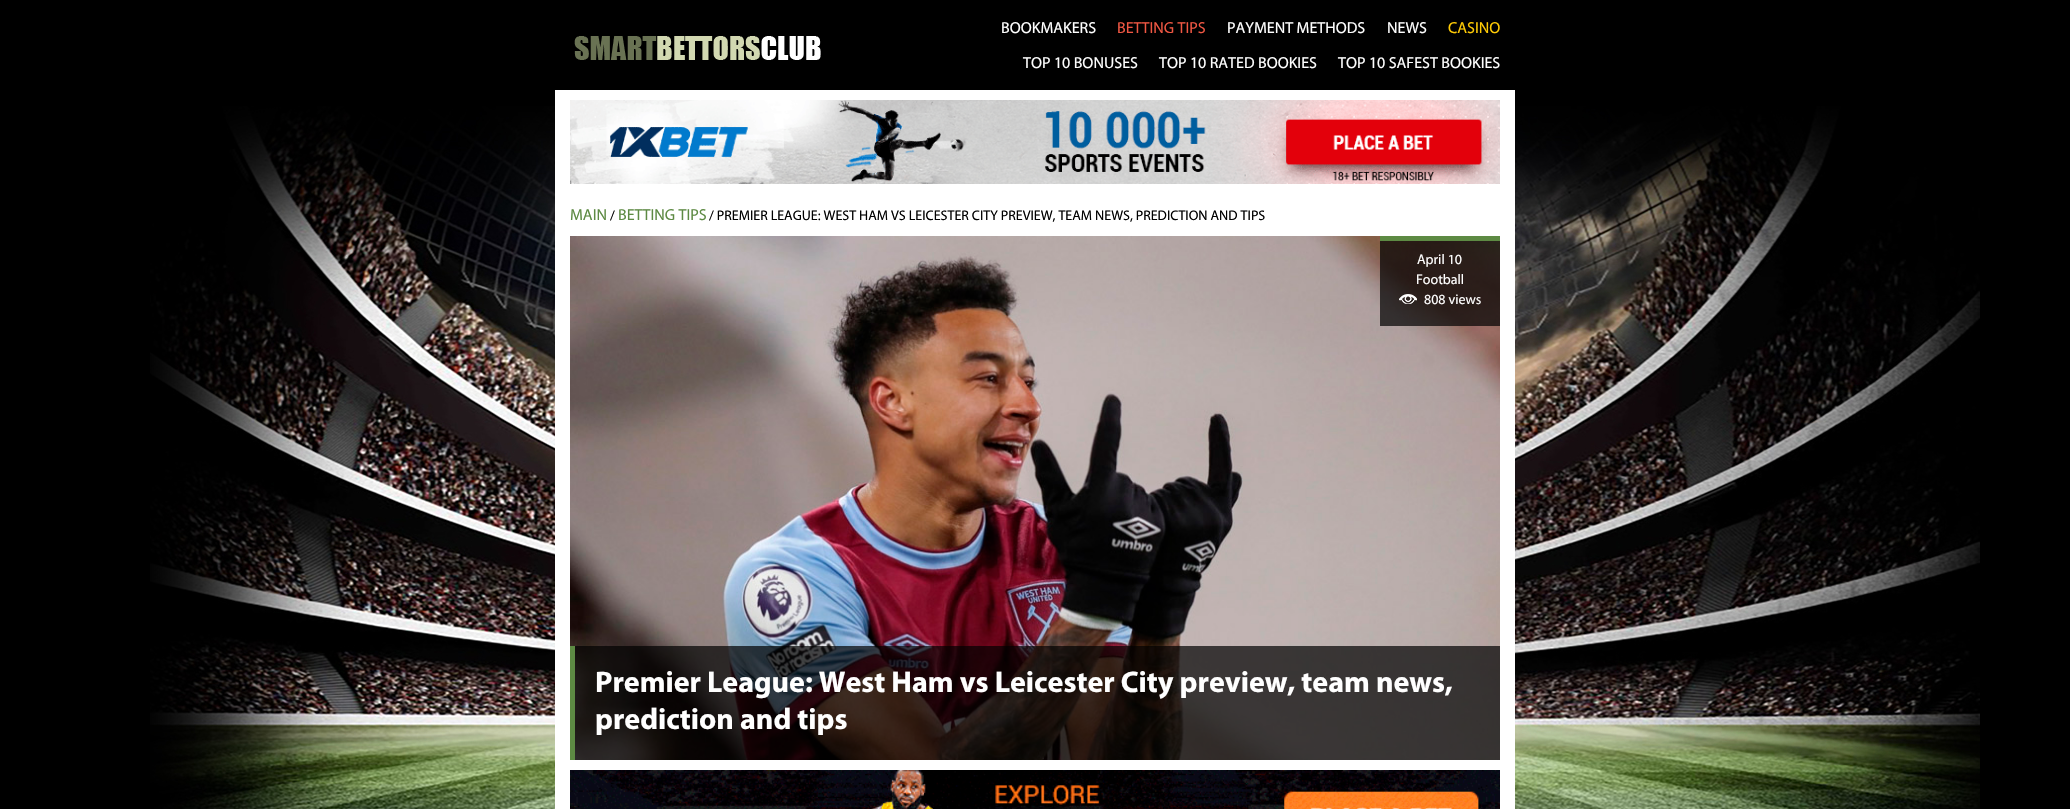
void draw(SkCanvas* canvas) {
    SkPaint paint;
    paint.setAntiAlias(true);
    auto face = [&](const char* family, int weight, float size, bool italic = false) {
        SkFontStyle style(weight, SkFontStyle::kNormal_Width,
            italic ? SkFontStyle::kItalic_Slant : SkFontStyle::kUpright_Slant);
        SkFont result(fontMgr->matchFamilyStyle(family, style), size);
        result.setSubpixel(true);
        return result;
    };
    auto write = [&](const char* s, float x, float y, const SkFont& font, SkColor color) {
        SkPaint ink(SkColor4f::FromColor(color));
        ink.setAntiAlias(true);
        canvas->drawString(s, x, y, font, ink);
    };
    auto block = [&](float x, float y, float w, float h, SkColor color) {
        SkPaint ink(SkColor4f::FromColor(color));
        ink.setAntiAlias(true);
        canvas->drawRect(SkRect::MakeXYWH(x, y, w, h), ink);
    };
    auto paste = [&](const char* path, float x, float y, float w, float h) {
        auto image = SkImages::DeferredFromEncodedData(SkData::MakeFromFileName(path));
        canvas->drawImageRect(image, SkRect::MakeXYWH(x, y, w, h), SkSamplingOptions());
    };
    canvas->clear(SK_ColorBLACK);
    paste("pic1.png", 574, 36, 247, 24);
    auto kFont1 = face("Myriad", 400, 16);
    write("BOOKMAKERS", 1001, 33, kFont1, SK_ColorWHITE);
    write("BETTING TIPS", 1117, 33, kFont1, SkColorSetRGB(240, 87, 67));
    write("PAYMENT METHODS", 1227, 33, kFont1, SK_ColorWHITE);
    write("NEWS", 1387, 33, kFont1, SK_ColorWHITE);
    write("CASINO", 1448, 33, kFont1, SkColorSetRGB(255, 203, 5));
    write("TOP 10 BONUSES", 1023, 68, kFont1, SK_ColorWHITE);
    write("TOP 10 RATED BOOKIES", 1159, 68, kFont1, SK_ColorWHITE);
    write("TOP 10 SAFEST BOOKIES", 1338, 68, kFont1, SK_ColorWHITE);
    paste("pic6.png", 150, 106, 1830, 703);
    block(555, 90, 960, 719, SK_ColorWHITE);
    paste("pic2.png", 570, 100, 930, 84);
    write("MAIN", 570, 220, kFont1, SkColorSetRGB(93, 138, 67));
    auto kFont2 = face("Myriad", 400, 14);
    write("/", 610, 220, kFont2, SK_ColorBLACK);
    write("BETTING TIPS", 618, 220, kFont1, SkColorSetRGB(93, 138, 67));
    write("/ PREMIER LEAGUE: WEST HAM VS LEICESTER CITY PREVIEW, TEAM NEWS, PREDICTION AND TIPS", 709, 220, kFont2, SK_ColorBLACK);
    paste("pic3.png", 570, 236, 930, 524);
    block(1380, 241, 120, 85, SkColorSetARGB(179, 0, 0, 0));
    block(1380, 236, 120, 5, SkColorSetRGB(93, 138, 67));
    write("April 10", 1417, 264, kFont2, SK_ColorWHITE);
    write("Football", 1416, 284, kFont2, SK_ColorWHITE);
    paste("pic4.png", 1399, 294, 18, 10);
    write("808 views", 1424, 304, kFont2, SK_ColorWHITE);
    block(575, 646, 925, 114, SkColorSetARGB(179, 0, 0, 0));
    block(570, 646, 5, 114, SkColorSetRGB(93, 138, 67));
    auto kFont3 = face("Myriad", 700, 30);
    write("Premier League: West Ham vs Leicester City preview, team news,", 595, 692, kFont3, SK_ColorWHITE);
    write("prediction and tips", 595, 729, kFont3, SK_ColorWHITE);
    paste("pic5.png", 570, 770, 930, 39);
}
